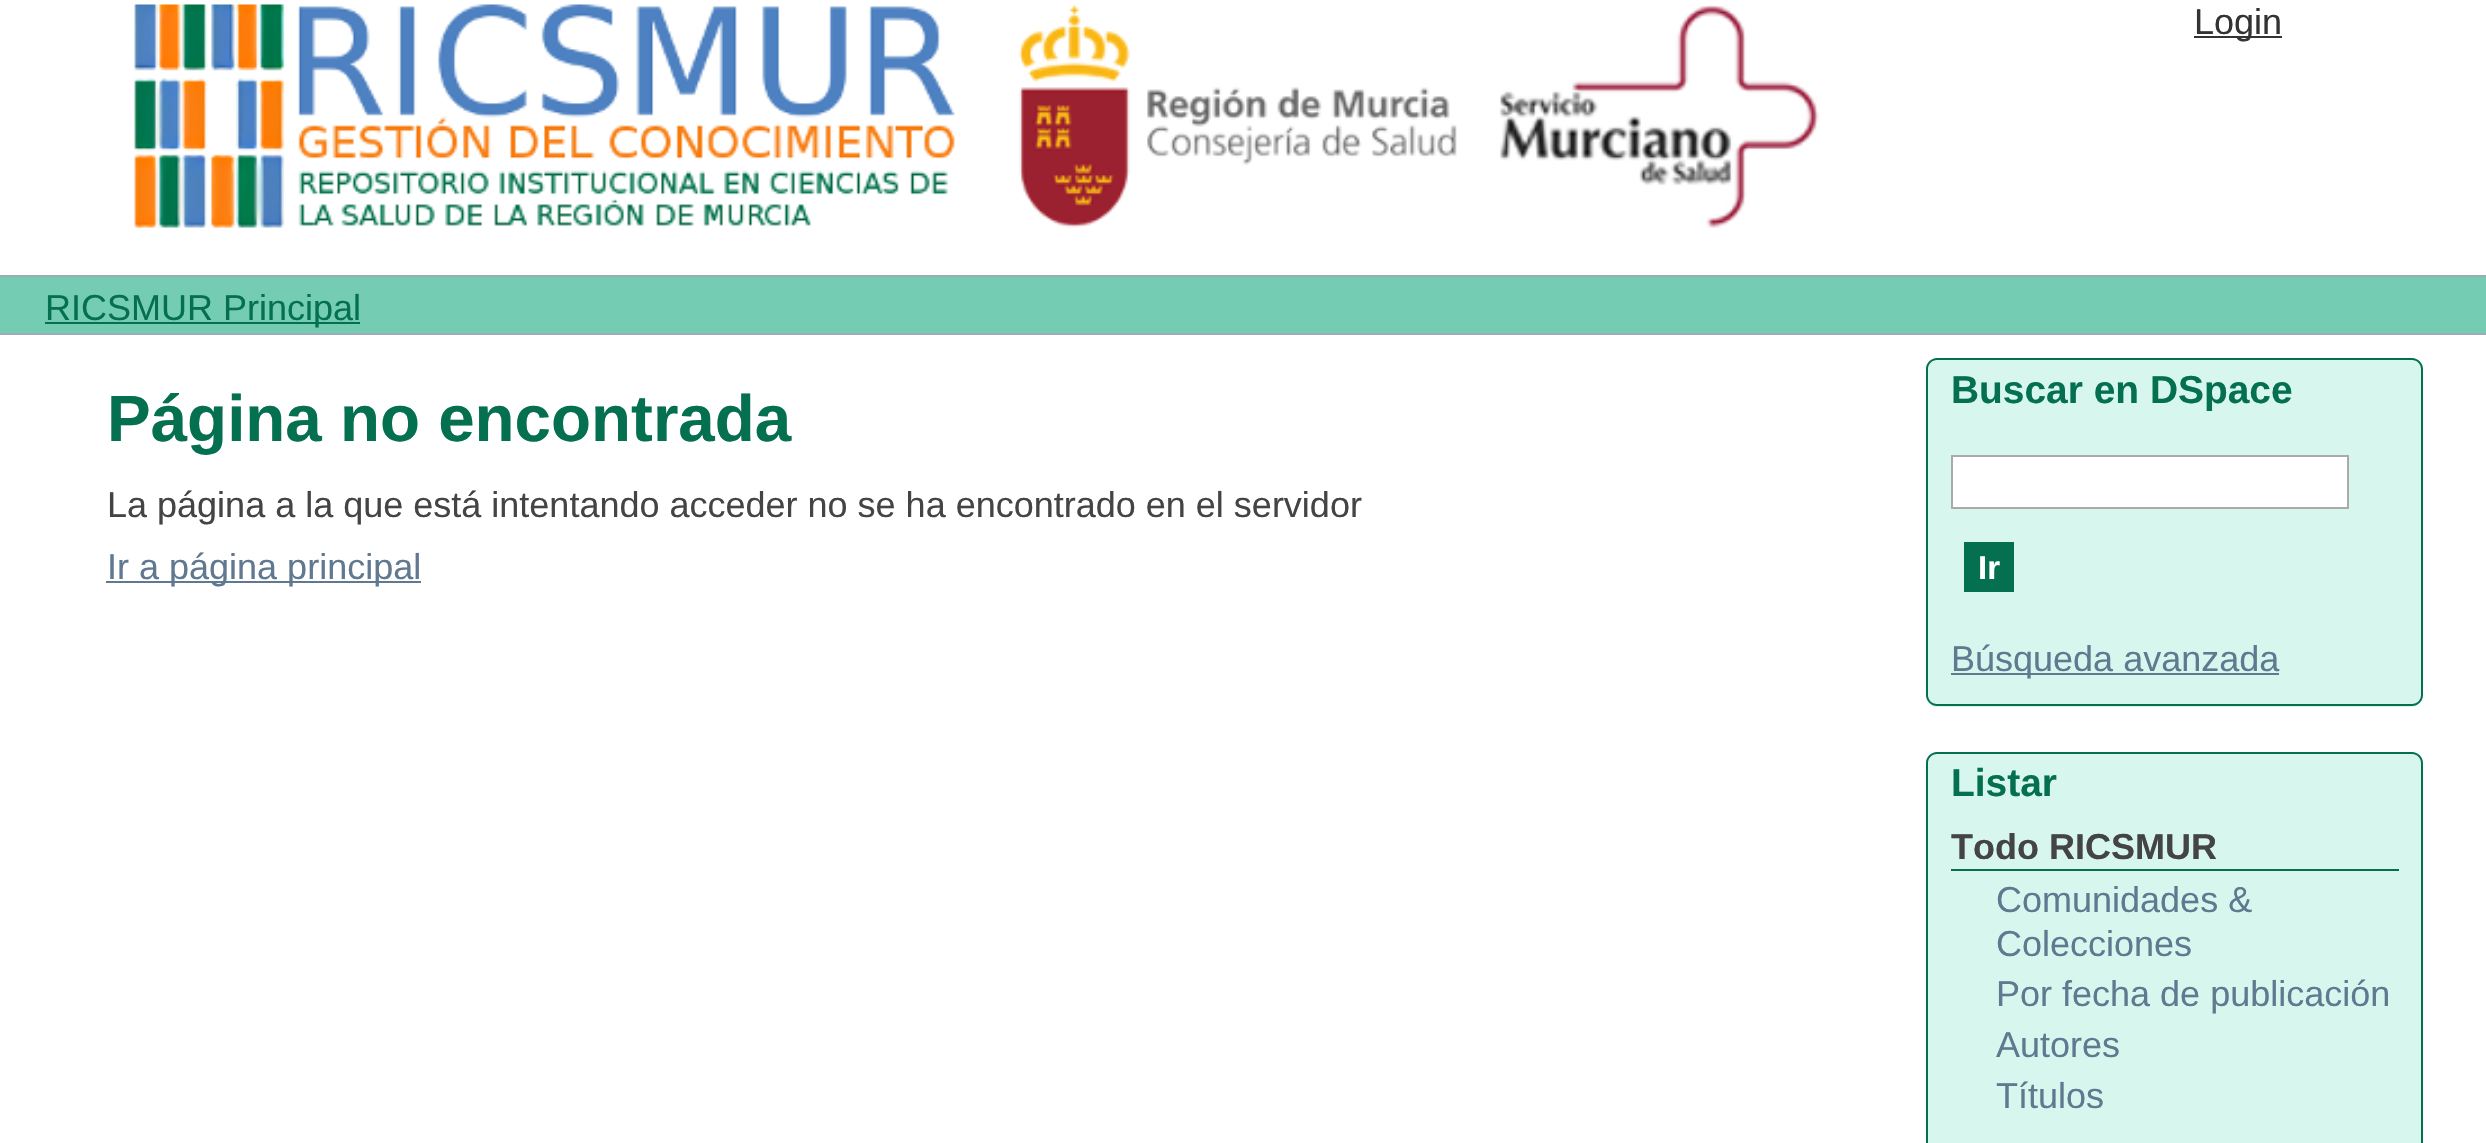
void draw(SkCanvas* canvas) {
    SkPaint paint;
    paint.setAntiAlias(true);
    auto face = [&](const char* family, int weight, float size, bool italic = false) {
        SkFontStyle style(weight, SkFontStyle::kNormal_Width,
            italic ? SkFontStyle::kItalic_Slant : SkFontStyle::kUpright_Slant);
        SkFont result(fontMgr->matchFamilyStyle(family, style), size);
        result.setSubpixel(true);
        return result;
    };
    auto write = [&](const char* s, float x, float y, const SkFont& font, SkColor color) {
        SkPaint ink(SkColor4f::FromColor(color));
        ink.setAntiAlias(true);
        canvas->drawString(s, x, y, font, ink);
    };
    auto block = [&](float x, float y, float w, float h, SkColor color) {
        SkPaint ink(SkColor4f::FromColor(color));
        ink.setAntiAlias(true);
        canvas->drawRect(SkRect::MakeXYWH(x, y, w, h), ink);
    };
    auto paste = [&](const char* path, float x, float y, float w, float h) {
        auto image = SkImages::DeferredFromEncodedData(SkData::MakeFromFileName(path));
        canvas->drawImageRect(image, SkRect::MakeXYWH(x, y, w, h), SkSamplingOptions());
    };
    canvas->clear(SK_ColorWHITE);
    paste("pic1.png", 134, 4, 1685, 224);
    block(2194, 36, 88, 2, SkColorSetRGB(51, 51, 51));
    auto kFont1 = face("Liberation Sans", 400, 36);
    write("Login", 2194, 34, kFont1, SkColorSetRGB(51, 51, 51));
    block(0, 277, 2486, 56, SkColorSetRGB(116, 205, 178));
    block(0, 275, 2486, 2, SkColorSetRGB(156, 172, 186));
    block(0, 333, 2486, 2, SkColorSetRGB(156, 172, 186));
    block(45, 322, 315, 2, SkColorSetRGB(5, 112, 80));
    write("RICSMUR Principal", 45, 320, kFont1, SkColorSetRGB(5, 112, 80));
    auto kFont2 = face("Liberation Sans", 700, 65.5f);
    write("Página no encontrada", 107, 441, kFont2, SkColorSetRGB(5, 112, 80));
    write("La página a la que está intentando acceder no se ha encontrado en el servidor", 107, 517, kFont1, SkColorSetRGB(68, 68, 68));
    block(106, 581, 315, 2, SkColorSetRGB(96, 120, 144));
    write("Ir a página principal", 107, 579, kFont1, SkColorSetRGB(96, 120, 144));
    paint.setColor(SkColorSetRGB(215, 247, 238));
    canvas->drawPath(SkPathBuilder().moveTo(1937, 358).lineTo(2412, 358).cubicTo(2418, 358, 2423, 363, 2423, 369).lineTo(2423, 421).lineTo(1926, 421).lineTo(1926, 369).cubicTo(1926, 363, 1931, 358, 1937, 358).close().detach(), paint);
    paint.setColor(SkColorSetRGB(5, 112, 80));
    canvas->drawPath(SkPathBuilder(SkPathFillType::kEvenOdd).moveTo(1937, 358).lineTo(2412, 358).cubicTo(2418, 358, 2423, 363, 2423, 369).lineTo(2423, 421).lineTo(1926, 421).lineTo(1926, 369).cubicTo(1926, 363, 1931, 358, 1937, 358).close().moveTo(1937, 360).lineTo(2412, 360).cubicTo(2417, 360, 2421, 364, 2421, 369).lineTo(2421, 421).lineTo(1928, 421).lineTo(1928, 369).cubicTo(1928, 364, 1932, 360, 1937, 360).close().detach(), paint);
    auto kFont3 = face("Liberation Sans", 700, 38.9f);
    write("Buscar en DSpace", 1951, 403, kFont3, SkColorSetRGB(5, 112, 80));
    paint.setColor(SkColorSetRGB(215, 247, 238));
    canvas->drawPath(SkPathBuilder().moveTo(1926, 421).lineTo(2423, 421).lineTo(2423, 696).cubicTo(2423, 702, 2418, 707, 2412, 707).lineTo(1937, 707).cubicTo(1931, 707, 1926, 702, 1926, 696).close().detach(), paint);
    paint.setColor(SkColorSetRGB(5, 112, 80));
    canvas->drawPath(SkPathBuilder(SkPathFillType::kEvenOdd).moveTo(1926, 421).lineTo(2423, 421).lineTo(2423, 695).cubicTo(2423, 701, 2418, 706, 2412, 706).lineTo(1937, 706).cubicTo(1931, 706, 1926, 701, 1926, 695).close().moveTo(1928, 421).lineTo(2421, 421).lineTo(2421, 695).cubicTo(2421, 700, 2417, 704, 2412, 704).lineTo(1937, 704).cubicTo(1932, 704, 1928, 700, 1928, 695).close().detach(), paint);
    paint.setColor(SK_ColorWHITE);
    canvas->drawRect(SkRect::MakeXYWH(1952, 456, 396, 52), paint);
    paint.setStyle(SkPaint::kStroke_Style);
    paint.setStrokeWidth(2);
    paint.setColor(SkColorSetRGB(170, 170, 170));
    canvas->drawRect(SkRect::MakeXYWH(1952, 456, 396, 52), paint);
    block(1964, 542, 50, 50, SkColorSetRGB(5, 112, 80));
    auto kFont4 = face("Liberation Sans", 700, 33);
    write("Ir", 1978, 579, kFont4, SK_ColorWHITE);
    block(1951, 673, 328, 2, SkColorSetRGB(96, 120, 144));
    write("Búsqueda avanzada", 1951, 671, kFont1, SkColorSetRGB(96, 120, 144));
    paint.setStyle(SkPaint::kFill_Style);
    paint.setColor(SkColorSetRGB(215, 247, 238));
    canvas->drawPath(SkPathBuilder().moveTo(1937, 752).lineTo(2412, 752).cubicTo(2418, 752, 2423, 757, 2423, 763).lineTo(2423, 815).lineTo(1926, 815).lineTo(1926, 763).cubicTo(1926, 757, 1931, 752, 1937, 752).close().detach(), paint);
    paint.setColor(SkColorSetRGB(5, 112, 80));
    canvas->drawPath(SkPathBuilder(SkPathFillType::kEvenOdd).moveTo(1937, 752).lineTo(2412, 752).cubicTo(2418, 752, 2423, 757, 2423, 763).lineTo(2423, 814).lineTo(1926, 814).lineTo(1926, 763).cubicTo(1926, 757, 1931, 752, 1937, 752).close().moveTo(1937, 754).lineTo(2412, 754).cubicTo(2417, 754, 2421, 758, 2421, 763).lineTo(2421, 814).lineTo(1928, 814).lineTo(1928, 763).cubicTo(1928, 758, 1932, 754, 1937, 754).close().detach(), paint);
    write("Listar", 1951, 796, kFont3, SkColorSetRGB(5, 112, 80));
    block(1928, 815, 493, 328, SkColorSetRGB(215, 247, 238));
    canvas->drawPath(SkPathBuilder(SkPathFillType::kEvenOdd).moveTo(1926, 814).lineTo(2423, 814).lineTo(2423, 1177).cubicTo(2423, 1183, 2418, 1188, 2412, 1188).lineTo(1937, 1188).cubicTo(1931, 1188, 1926, 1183, 1926, 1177).close().moveTo(1928, 814).lineTo(2421, 814).lineTo(2421, 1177).cubicTo(2421, 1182, 2417, 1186, 2412, 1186).lineTo(1937, 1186).cubicTo(1932, 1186, 1928, 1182, 1928, 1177).close().detach(), paint);
    block(1951, 869, 448, 2, SkColorSetRGB(5, 112, 80));
    auto kFont5 = face("Liberation Sans", 700, 36);
    write("Todo RICSMUR", 1951, 859, kFont5, SkColorSetRGB(68, 68, 68));
    write("Comunidades &", 1996, 912, kFont1, SkColorSetRGB(96, 120, 144));
    write("Colecciones", 1996, 956, kFont1, SkColorSetRGB(96, 120, 144));
    write("Por fecha de publicación", 1996, 1006, kFont1, SkColorSetRGB(96, 120, 144));
    write("Autores", 1996, 1057, kFont1, SkColorSetRGB(96, 120, 144));
    write("Títulos", 1996, 1108, kFont1, SkColorSetRGB(96, 120, 144));
}
